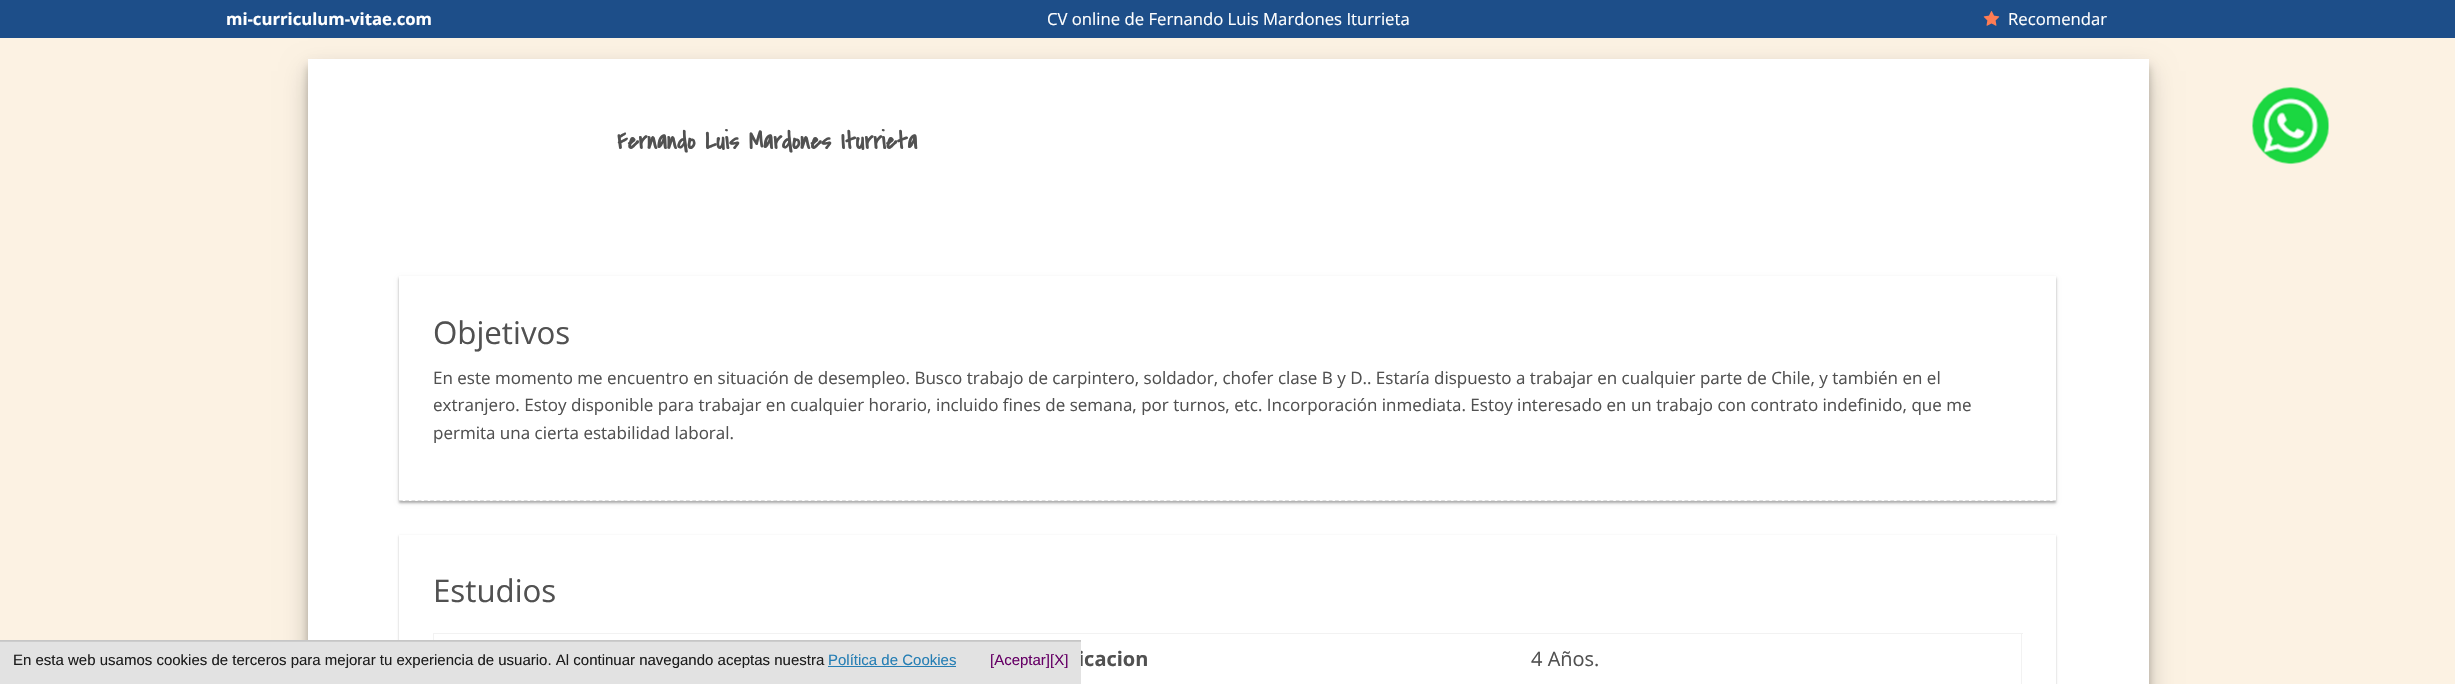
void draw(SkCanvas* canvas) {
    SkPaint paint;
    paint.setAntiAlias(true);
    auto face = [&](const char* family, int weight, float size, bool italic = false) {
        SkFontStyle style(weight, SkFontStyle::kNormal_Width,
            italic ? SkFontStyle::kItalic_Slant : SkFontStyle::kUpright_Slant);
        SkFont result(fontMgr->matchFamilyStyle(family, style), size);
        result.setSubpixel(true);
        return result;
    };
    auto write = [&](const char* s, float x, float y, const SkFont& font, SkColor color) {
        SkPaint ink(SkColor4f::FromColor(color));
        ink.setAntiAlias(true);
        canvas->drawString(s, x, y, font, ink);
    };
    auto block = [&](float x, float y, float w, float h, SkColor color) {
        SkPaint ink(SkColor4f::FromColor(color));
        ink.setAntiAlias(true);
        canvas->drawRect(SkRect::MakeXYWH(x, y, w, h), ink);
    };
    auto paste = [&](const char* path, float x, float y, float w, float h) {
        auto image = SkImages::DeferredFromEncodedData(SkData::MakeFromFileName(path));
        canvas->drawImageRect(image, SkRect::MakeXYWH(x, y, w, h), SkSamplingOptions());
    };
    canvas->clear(SkColorSetRGB(252, 242, 227));
    paint.setColor(SkColorSetARGB(48, 0, 0, 0));
    paint.setMaskFilter(SkMaskFilter::MakeBlur(kNormal_SkBlurStyle, 12.5f));
    canvas->drawRect(SkRect::MakeXYWH(308, 71, 1841, 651), paint);
    paint.setMaskFilter(nullptr);
    block(0, 0, 2455, 38, SkColorSetRGB(29, 78, 137));
    auto kFont1 = face("Open Sans", 700, 16.7f);
    write("mi-curriculum-vitae.com", 226, 25, kFont1, SK_ColorWHITE);
    auto kFont2 = face("Open Sans", 400, 16.7f);
    write("CV online de Fernando Luis Mardones Iturrieta", 1047, 25, kFont2, SK_ColorWHITE);
    paste("pic1.png", 1983, 11, 17, 15);
    write("Recomendar", 2008, 25, kFont2, SK_ColorWHITE);
    paint.setColor(SkColorSetARGB(59, 0, 0, 0));
    paint.setMaskFilter(SkMaskFilter::MakeBlur(kNormal_SkBlurStyle, 4));
    canvas->drawRect(SkRect::MakeXYWH(308, 66, 1841, 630), paint);
    paint.setMaskFilter(nullptr);
    block(308, 59, 1841, 625, SK_ColorWHITE);
    auto kFont3 = face("Covered By Your Grace", 700, 25);
    write("Fernando Luis Mardones Iturrieta", 617, 149, kFont3, SkColorSetRGB(81, 81, 81));
    paste("pic2.png", 2252, 87, 78, 78);
    canvas->save();
    canvas->clipPath(SkPathBuilder(SkPathFillType::kEvenOdd).moveTo(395, 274).lineTo(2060, 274).lineTo(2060, 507).lineTo(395, 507).close().moveTo(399, 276).lineTo(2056, 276).lineTo(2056, 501).lineTo(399, 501).close().detach(), true);
    paint.setColor(SkColorSetARGB(61, 0, 0, 0));
    paint.setMaskFilter(SkMaskFilter::MakeBlur(kNormal_SkBlurStyle, 1));
    canvas->drawRect(SkRect::MakeXYWH(399, 278, 1657, 225), paint);
    paint.setMaskFilter(nullptr);
    canvas->restore();
    canvas->save();
    canvas->clipPath(SkPathBuilder(SkPathFillType::kEvenOdd).moveTo(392, 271).lineTo(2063, 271).lineTo(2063, 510).lineTo(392, 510).close().moveTo(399, 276).lineTo(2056, 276).lineTo(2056, 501).lineTo(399, 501).close().detach(), true);
    paint.setColor(SkColorSetARGB(31, 0, 0, 0));
    paint.setMaskFilter(SkMaskFilter::MakeBlur(kNormal_SkBlurStyle, 2));
    canvas->drawRect(SkRect::MakeXYWH(399, 278, 1657, 225), paint);
    paint.setMaskFilter(nullptr);
    canvas->restore();
    paint.setStyle(SkPaint::kStroke_Style);
    paint.setStrokeWidth(1.2f);
    paint.setColor(SkColorSetRGB(221, 221, 221));
    paint.setPathEffect(SkDashPathEffect::Make({{3.75f, 2.49f}}, 0));
    canvas->drawPath(SkPathBuilder().moveTo(399, 500.5f).lineTo(2056, 500.5f).detach(), paint);
    paint.setPathEffect(nullptr);
    auto kFont4 = face("Open Sans", 400, 31.25f);
    write("Objetivos", 433, 344, kFont4, SkColorSetRGB(81, 81, 81));
    auto kFont5 = face("Open Sans", 400, 17);
    write("En este momento me encuentro en situación de desempleo. Busco trabajo de carpintero, soldador, chofer clase B y D.. Estaría dispuesto a trabajar en cualquier parte de Chile, y también en el", 433, 384, kFont5, SkColorSetRGB(81, 81, 81));
    write("extranjero. Estoy disponible para trabajar en cualquier horario, incluido fines de semana, por turnos, etc. Incorporación inmediata. Estoy interesado en un trabajo con contrato indefinido, que me", 433, 411, kFont5, SkColorSetRGB(81, 81, 81));
    write("permita una cierta estabilidad laboral.", 433, 439, kFont5, SkColorSetRGB(81, 81, 81));
    canvas->save();
    canvas->clipPath(SkPathBuilder(SkPathFillType::kEvenOdd).moveTo(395, 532).lineTo(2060, 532).lineTo(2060, 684).lineTo(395, 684).close().moveTo(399, 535).lineTo(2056, 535).lineTo(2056, 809).lineTo(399, 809).close().detach(), true);
    paint.setStyle(SkPaint::kFill_Style);
    paint.setColor(SkColorSetARGB(61, 0, 0, 0));
    paint.setMaskFilter(SkMaskFilter::MakeBlur(kNormal_SkBlurStyle, 1));
    canvas->drawRect(SkRect::MakeXYWH(399, 536, 1657, 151), paint);
    paint.setMaskFilter(nullptr);
    canvas->restore();
    write("Estudios", 433, 602, kFont4, SkColorSetRGB(81, 81, 81));
    block(433, 633, 1590, 1, SkColorSetRGB(242, 242, 242));
    block(2021, 633, 1, 51, SkColorSetRGB(242, 242, 242));
    block(433, 633, 1, 7, SkColorSetRGB(242, 242, 242));
    auto kFont6 = face("Open Sans", 700, 20);
    write("icacion", 1078, 666, kFont6, SkColorSetRGB(81, 81, 81));
    auto kFont7 = face("Open Sans", 400, 20);
    write("4 Años.", 1531, 666, kFont7, SkColorSetRGB(81, 81, 81));
    block(0, 642, 1081, 42, SkColorSetRGB(226, 226, 226));
    block(0, 640, 1081, 1, SkColorSetRGB(198, 198, 198));
    block(0, 641, 1081, 1, SkColorSetRGB(204, 204, 204));
    auto kFont8 = face("Liberation Sans", 400, 15);
    write("En esta web usamos cookies de terceros para mejorar tu experiencia de usuario. Al continuar navegando aceptas nuestra", 13, 665, kFont8, SkColorSetRGB(29, 29, 29));
    write("Política de Cookies", 828, 665, kFont8, SkColorSetRGB(37, 126, 180));
    block(828, 666, 128, 1, SkColorSetRGB(37, 126, 180));
    write("[Aceptar]", 990, 665, kFont8, SkColorSetRGB(102, 0, 102));
    write("[X]", 1050, 665, kFont8, SkColorSetRGB(102, 0, 102));
}
